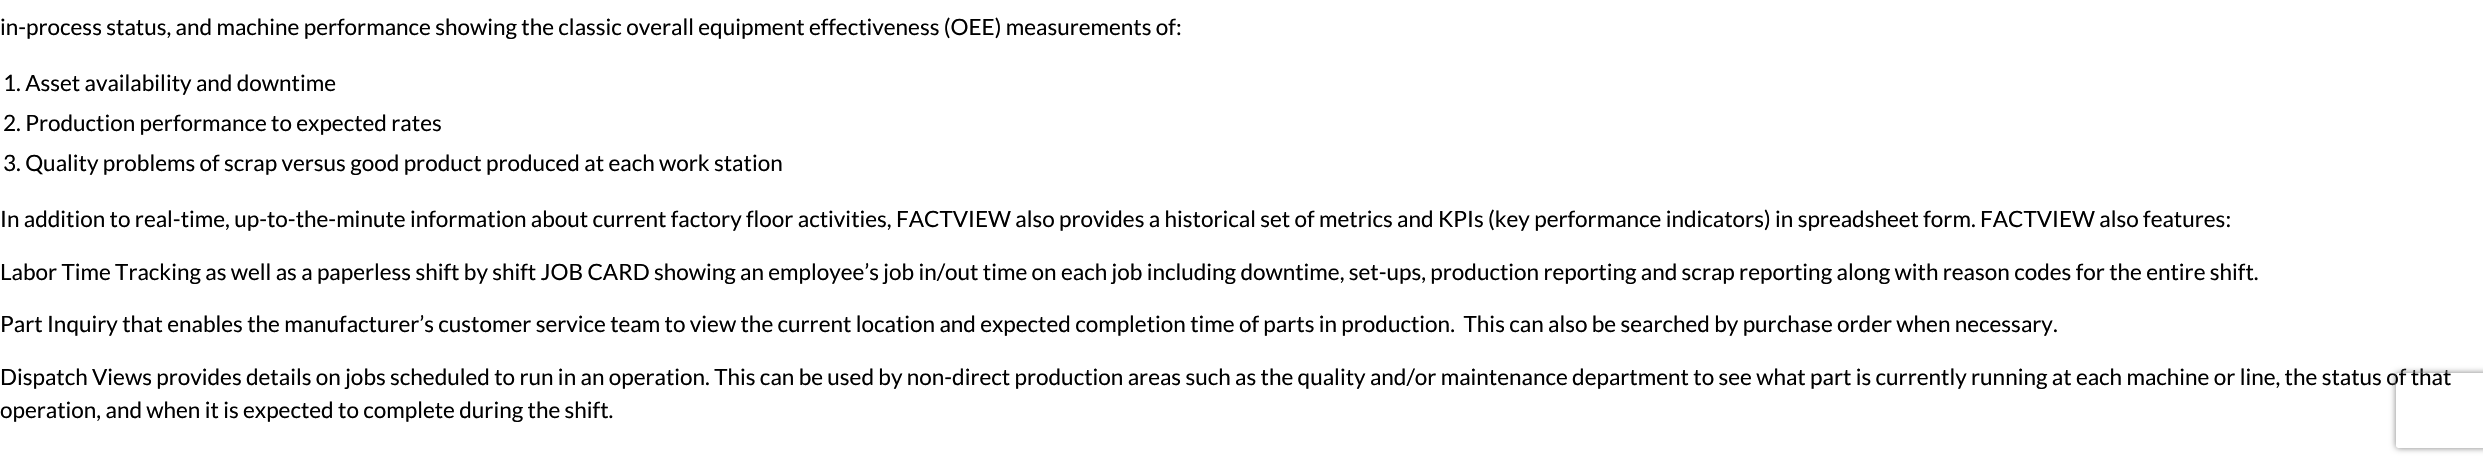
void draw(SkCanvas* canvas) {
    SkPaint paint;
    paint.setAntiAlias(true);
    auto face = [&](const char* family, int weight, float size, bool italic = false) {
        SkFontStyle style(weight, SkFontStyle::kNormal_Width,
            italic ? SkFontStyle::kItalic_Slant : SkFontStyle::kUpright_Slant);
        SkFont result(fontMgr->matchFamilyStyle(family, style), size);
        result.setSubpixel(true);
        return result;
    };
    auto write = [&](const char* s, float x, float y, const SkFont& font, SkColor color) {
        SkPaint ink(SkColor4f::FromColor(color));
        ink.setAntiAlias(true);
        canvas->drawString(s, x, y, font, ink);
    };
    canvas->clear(SK_ColorWHITE);
    auto kFont1 = face("Lato", 400, 22.5f);
    write("in-process status, and machine performance showing the classic overall equipment effectiveness (OEE) measurements of:", 0, 35, kFont1, SK_ColorBLACK);
    write("1. Asset availability and downtime", 3, 91, kFont1, SK_ColorBLACK);
    write("2. Production performance to expected rates", 3, 131, kFont1, SK_ColorBLACK);
    write("3. Quality problems of scrap versus good product produced at each work station", 3, 171, kFont1, SK_ColorBLACK);
    write("In addition to real-time, up-to-the-minute information about current factory floor activities, FACTVIEW also provides a historical set of metrics and KPIs (key performance indicators) in spreadsheet form. FACTVIEW also features:", 0, 227, kFont1, SK_ColorBLACK);
    write("Labor Time Tracking as well as a paperless shift by shift JOB CARD showing an employee’s job in/out time on each job including downtime, set-ups, production reporting and scrap reporting along with reason codes for the entire shift.", 0, 280, kFont1, SK_ColorBLACK);
    write("Part Inquiry that enables the manufacturer’s customer service team to view the current location and expected completion time of parts in production.  This can also be searched by purchase order when necessary.", 0, 332, kFont1, SK_ColorBLACK);
    write("Dispatch Views provides details on jobs scheduled to run in an operation. This can be used by non-direct production areas such as the quality and/or maintenance department to see what part is currently running at each machine or line, the status of that", 0, 385, kFont1, SK_ColorBLACK);
    write("operation, and when it is expected to complete during the shift.", 0, 418, kFont1, SK_ColorBLACK);
    canvas->save();
    canvas->clipPath(SkPathBuilder(SkPathFillType::kEvenOdd).moveTo(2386, 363).lineTo(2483, 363).lineTo(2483, 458).lineTo(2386, 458).close().moveTo(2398.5f, 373).lineTo(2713.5f, 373).cubicTo(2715, 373, 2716, 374, 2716, 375.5f).lineTo(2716, 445.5f).cubicTo(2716, 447, 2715, 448, 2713.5f, 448).lineTo(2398.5f, 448).cubicTo(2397, 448, 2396, 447, 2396, 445.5f).lineTo(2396, 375.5f).cubicTo(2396, 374, 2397, 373, 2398.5f, 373).close().detach(), true);
    paint.setColor(SkColorSetRGB(128, 128, 128));
    paint.setMaskFilter(SkMaskFilter::MakeBlur(kNormal_SkBlurStyle, 3));
    canvas->drawRoundRect(SkRect::MakeXYWH(2396, 373, 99, 75), 2.5f, 2.5f, paint);
    paint.setMaskFilter(nullptr);
    canvas->restore();
}
